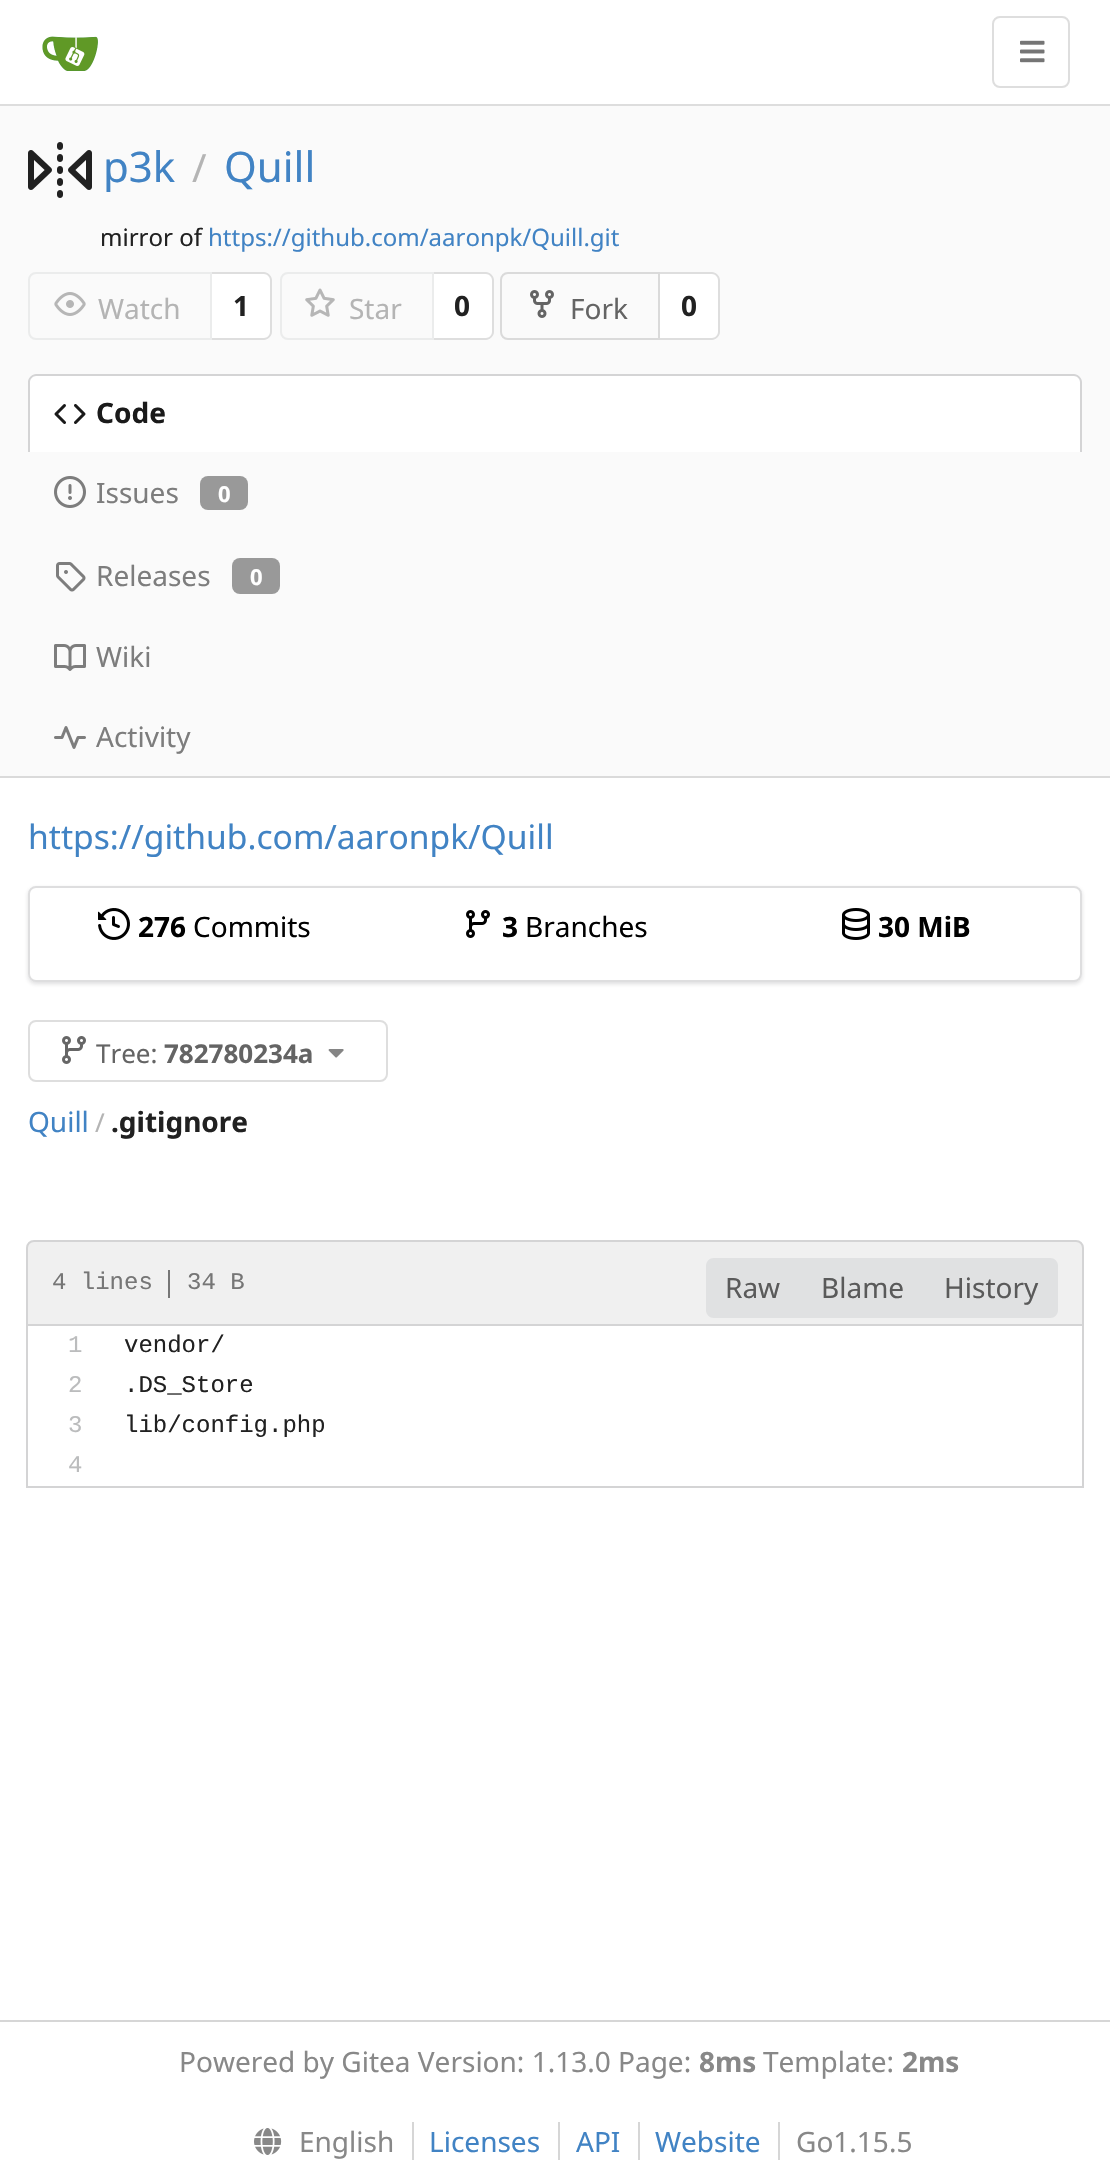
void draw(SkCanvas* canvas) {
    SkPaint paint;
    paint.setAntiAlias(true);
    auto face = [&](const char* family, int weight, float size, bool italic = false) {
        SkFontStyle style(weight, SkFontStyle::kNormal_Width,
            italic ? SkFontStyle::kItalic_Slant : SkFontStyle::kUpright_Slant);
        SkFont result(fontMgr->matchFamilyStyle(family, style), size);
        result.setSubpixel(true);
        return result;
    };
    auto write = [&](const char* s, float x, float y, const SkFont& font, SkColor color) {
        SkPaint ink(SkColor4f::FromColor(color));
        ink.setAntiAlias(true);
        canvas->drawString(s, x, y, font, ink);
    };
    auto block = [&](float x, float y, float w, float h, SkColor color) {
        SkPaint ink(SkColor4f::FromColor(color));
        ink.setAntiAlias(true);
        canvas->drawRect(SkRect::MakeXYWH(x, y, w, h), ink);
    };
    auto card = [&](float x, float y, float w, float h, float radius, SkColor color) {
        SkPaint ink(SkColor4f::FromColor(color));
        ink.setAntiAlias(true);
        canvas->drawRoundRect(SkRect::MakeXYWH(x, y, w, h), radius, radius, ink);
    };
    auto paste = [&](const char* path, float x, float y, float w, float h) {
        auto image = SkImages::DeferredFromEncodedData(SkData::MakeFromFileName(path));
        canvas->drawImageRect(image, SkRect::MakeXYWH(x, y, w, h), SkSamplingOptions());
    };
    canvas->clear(SK_ColorWHITE);
    block(0, 104, 1110, 2, SkColorSetRGB(221, 221, 221));
    paste("pic1.png", 42, 36, 56, 35);
    paint.setStyle(SkPaint::kStroke_Style);
    paint.setStrokeWidth(2);
    paint.setColor(SkColorSetRGB(222, 222, 222));
    canvas->drawRoundRect(SkRect::MakeXYWH(993, 17, 76, 70), 7, 7, paint);
    paste("pic2.png", 1020, 40, 25, 23);
    block(0, 106, 1110, 670, SkColorSetRGB(250, 250, 250));
    paste("pic3.png", 28, 142, 64, 56);
    auto kFont1 = face("Noto Sans", 400, 42);
    write("p3k", 103, 182, kFont1, SkColorSetRGB(65, 131, 196));
    auto kFont2 = face("Noto Sans", 400, 39);
    write("/", 192, 182, kFont2, SkColorSetRGB(180, 180, 180));
    write("Quill", 224, 182, kFont1, SkColorSetRGB(65, 131, 196));
    auto kFont3 = face("Noto Sans", 400, 24);
    write("mirror of", 100, 246, kFont3, SkColorSetRGB(33, 33, 33));
    write("https://github.com/aaronpk/Quill.git", 208, 246, kFont3, SkColorSetRGB(65, 131, 196));
    paint.setColor(SkColorSetRGB(235, 236, 236));
    canvas->drawPath(SkPathBuilder().moveTo(36, 273).lineTo(211, 273).lineTo(211, 339).lineTo(36, 339).cubicTo(32, 339, 29, 336, 29, 332).lineTo(29, 280).cubicTo(29, 276, 32, 273, 36, 273).close().detach(), paint);
    paste("pic4.png", 54, 292, 32, 24);
    auto kFont4 = face("Noto Sans", 400, 28);
    write("Watch", 98, 319, kFont4, SkColorSetRGB(180, 180, 180));
    paint.setStyle(SkPaint::kFill_Style);
    paint.setColor(SK_ColorWHITE);
    canvas->drawPath(SkPathBuilder().moveTo(212, 272).lineTo(264, 272).cubicTo(268.5f, 272, 272, 275.5f, 272, 280).lineTo(272, 332).cubicTo(272, 336.5f, 268.5f, 340, 264, 340).lineTo(212, 340).close().detach(), paint);
    paint.setColor(SkColorSetRGB(222, 222, 222));
    canvas->drawPath(SkPathBuilder(SkPathFillType::kEvenOdd).moveTo(212, 272).lineTo(264, 272).cubicTo(268, 272, 272, 276, 272, 280).lineTo(272, 332).cubicTo(272, 336, 268, 340, 264, 340).lineTo(212, 340).close().moveTo(212, 274).lineTo(264, 274).cubicTo(267, 274, 270, 277, 270, 280).lineTo(270, 332).cubicTo(270, 335, 267, 338, 264, 338).lineTo(212, 338).close().detach(), paint);
    auto kFont5 = face("Noto Sans", 700, 28);
    write("1", 233, 316, kFont5, SkColorSetRGB(33, 33, 33));
    paint.setStyle(SkPaint::kStroke_Style);
    paint.setColor(SkColorSetRGB(235, 236, 236));
    canvas->drawPath(SkPathBuilder().moveTo(288, 273).lineTo(433, 273).lineTo(433, 339).lineTo(288, 339).cubicTo(284, 339, 281, 336, 281, 332).lineTo(281, 280).cubicTo(281, 276, 284, 273, 288, 273).close().detach(), paint);
    paste("pic5.png", 305, 288, 30, 29);
    write("Star", 349, 319, kFont4, SkColorSetRGB(180, 180, 180));
    paint.setStyle(SkPaint::kFill_Style);
    paint.setColor(SK_ColorWHITE);
    canvas->drawPath(SkPathBuilder().moveTo(434, 272).lineTo(486, 272).cubicTo(490.5f, 272, 494, 275.5f, 494, 280).lineTo(494, 332).cubicTo(494, 336.5f, 490.5f, 340, 486, 340).lineTo(434, 340).close().detach(), paint);
    paint.setColor(SkColorSetRGB(222, 222, 222));
    canvas->drawPath(SkPathBuilder(SkPathFillType::kEvenOdd).moveTo(434, 272).lineTo(486, 272).cubicTo(490, 272, 494, 276, 494, 280).lineTo(494, 332).cubicTo(494, 336, 490, 340, 486, 340).lineTo(434, 340).close().moveTo(434, 274).lineTo(486, 274).cubicTo(489, 274, 492, 277, 492, 280).lineTo(492, 332).cubicTo(492, 335, 489, 338, 486, 338).lineTo(434, 338).close().detach(), paint);
    write("0", 454, 316, kFont5, SkColorSetRGB(33, 33, 33));
    paint.setStyle(SkPaint::kStroke_Style);
    paint.setColor(SkColorSetRGB(218, 218, 218));
    canvas->drawPath(SkPathBuilder().moveTo(508, 273).lineTo(659, 273).lineTo(659, 339).lineTo(508, 339).cubicTo(504, 339, 501, 336, 501, 332).lineTo(501, 280).cubicTo(501, 276, 504, 273, 508, 273).close().detach(), paint);
    paste("pic6.png", 530, 290, 24, 28);
    write("Fork", 570, 319, kFont4, SkColorSetRGB(100, 100, 100));
    paint.setStyle(SkPaint::kFill_Style);
    paint.setColor(SK_ColorWHITE);
    canvas->drawPath(SkPathBuilder().moveTo(660, 272).lineTo(712, 272).cubicTo(716.5f, 272, 720, 275.5f, 720, 280).lineTo(720, 332).cubicTo(720, 336.5f, 716.5f, 340, 712, 340).lineTo(660, 340).close().detach(), paint);
    paint.setColor(SkColorSetRGB(222, 222, 222));
    canvas->drawPath(SkPathBuilder(SkPathFillType::kEvenOdd).moveTo(660, 272).lineTo(712, 272).cubicTo(716, 272, 720, 276, 720, 280).lineTo(720, 332).cubicTo(720, 336, 716, 340, 712, 340).lineTo(660, 340).close().moveTo(660, 274).lineTo(712, 274).cubicTo(715, 274, 718, 277, 718, 280).lineTo(718, 332).cubicTo(718, 335, 715, 338, 712, 338).lineTo(660, 338).close().detach(), paint);
    write("0", 681, 316, kFont5, SkColorSetRGB(33, 33, 33));
    paint.setColor(SK_ColorWHITE);
    canvas->drawPath(SkPathBuilder().moveTo(36, 374).lineTo(1074, 374).cubicTo(1078.5f, 374, 1082, 377.5f, 1082, 382).lineTo(1082, 452).lineTo(28, 452).lineTo(28, 382).cubicTo(28, 377.5f, 31.5f, 374, 36, 374).close().detach(), paint);
    paint.setColor(SkColorSetRGB(212, 212, 213));
    canvas->drawPath(SkPathBuilder(SkPathFillType::kEvenOdd).moveTo(36, 374).lineTo(1074, 374).cubicTo(1078, 374, 1082, 378, 1082, 382).lineTo(1082, 452).lineTo(28, 452).lineTo(28, 382).cubicTo(28, 378, 32, 374, 36, 374).close().moveTo(36, 376).lineTo(1074, 376).cubicTo(1077, 376, 1080, 379, 1080, 382).lineTo(1080, 452).lineTo(30, 452).lineTo(30, 382).cubicTo(30, 379, 33, 376, 36, 376).close().detach(), paint);
    paste("pic7.png", 54, 404, 32, 20);
    write("Code", 96, 423, kFont5, SkColorSetRGB(26, 26, 26));
    paste("pic8.png", 54, 476, 32, 32);
    write("Issues", 96, 503, kFont4, SkColorSetRGB(125, 125, 125));
    card(200, 476, 48, 34, 8, SkColorSetRGB(153, 153, 153));
    auto kFont6 = face("Noto Sans", 700, 22);
    write("0", 218, 502, kFont6, SK_ColorWHITE);
    paste("pic9.png", 56, 562, 30, 30);
    write("Releases", 96, 586, kFont4, SkColorSetRGB(125, 125, 125));
    card(232, 558, 48, 36, 8, SkColorSetRGB(153, 153, 153));
    write("0", 250, 585, kFont6, SK_ColorWHITE);
    paste("pic10.png", 54, 644, 32, 27);
    write("Wiki", 96, 667, kFont4, SkColorSetRGB(125, 125, 125));
    paste("pic11.png", 54, 726, 32, 23);
    write("Activity", 96, 747, kFont4, SkColorSetRGB(125, 125, 125));
    block(0, 776, 1110, 2, SkColorSetRGB(218, 218, 218));
    auto kFont7 = face("Noto Sans", 400, 33.6f);
    write("https://github.com/aaronpk/Quill", 28, 849, kFont7, SkColorSetRGB(65, 131, 196));
    canvas->save();
    canvas->clipPath(SkPathBuilder(SkPathFillType::kEvenOdd).moveTo(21, 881).lineTo(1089, 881).lineTo(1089, 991).lineTo(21, 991).close().moveTo(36, 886).lineTo(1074, 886).cubicTo(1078.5f, 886, 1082, 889.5f, 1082, 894).lineTo(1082, 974).cubicTo(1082, 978.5f, 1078.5f, 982, 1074, 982).lineTo(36, 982).cubicTo(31.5f, 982, 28, 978.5f, 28, 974).lineTo(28, 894).cubicTo(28, 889.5f, 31.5f, 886, 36, 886).close().detach(), true);
    paint.setColor(SkColorSetARGB(38, 34, 36, 38));
    paint.setMaskFilter(SkMaskFilter::MakeBlur(kNormal_SkBlurStyle, 2));
    canvas->drawRoundRect(SkRect::MakeXYWH(28, 888, 1054, 96), 8, 8, paint);
    paint.setMaskFilter(nullptr);
    canvas->restore();
    paint.setStyle(SkPaint::kStroke_Style);
    canvas->drawRoundRect(SkRect::MakeXYWH(29, 887, 1052, 94), 7, 7, paint);
    paste("pic12.png", 98, 908, 32, 32);
    write("276", 138, 937, kFont5, SK_ColorBLACK);
    write("Commits", 193, 937, kFont4, SK_ColorBLACK);
    paste("pic13.png", 466, 910, 24, 28);
    write("3", 502, 937, kFont5, SK_ColorBLACK);
    write("Branches", 525, 937, kFont4, SK_ColorBLACK);
    paste("pic14.png", 842, 908, 28, 32);
    write("30 MiB", 878, 937, kFont5, SK_ColorBLACK);
    paint.setColor(SkColorSetRGB(222, 222, 222));
    canvas->drawRoundRect(SkRect::MakeXYWH(29, 1021, 358, 60), 7, 7, paint);
    paste("pic15.png", 62, 1036, 24, 28);
    auto kFont8 = face("Noto Sans", 400, 26);
    write("Tree:", 96, 1063, kFont8, SkColorSetRGB(100, 100, 100));
    auto kFont9 = face("Noto Sans", 700, 26);
    write("782780234a", 164, 1063, kFont9, SkColorSetRGB(100, 100, 100));
    paste("pic16.png", 328, 1049, 16, 9);
    write("Quill", 28, 1132, kFont4, SkColorSetRGB(65, 131, 196));
    write("/", 95, 1132, kFont8, SkColorSetRGB(180, 180, 180));
    write(".gitignore", 111, 1132, kFont5, SkColorSetRGB(33, 33, 33));
    paint.setStyle(SkPaint::kFill_Style);
    paint.setColor(SkColorSetRGB(240, 240, 240));
    canvas->drawPath(SkPathBuilder().moveTo(34, 1241).lineTo(1076, 1241).cubicTo(1080, 1241, 1083, 1244, 1083, 1248).lineTo(1083, 1325).lineTo(27, 1325).lineTo(27, 1248).cubicTo(27, 1244, 30, 1241, 34, 1241).close().detach(), paint);
    paint.setStyle(SkPaint::kStroke_Style);
    paint.setColor(SkColorSetRGB(212, 212, 213));
    canvas->drawPath(SkPathBuilder().moveTo(34, 1241).lineTo(1076, 1241).cubicTo(1080, 1241, 1083, 1244, 1083, 1248).lineTo(1083, 1325).lineTo(27, 1325).lineTo(27, 1248).cubicTo(27, 1244, 30, 1241, 34, 1241).close().detach(), paint);
    auto kFont10 = face("Liberation Mono", 400, 24);
    write("4 lines", 52, 1289, kFont10, SkColorSetRGB(118, 118, 118));
    block(168, 1270, 2, 28, SkColorSetRGB(118, 118, 118));
    write("34 B", 187, 1289, kFont10, SkColorSetRGB(118, 118, 118));
    paint.setStyle(SkPaint::kFill_Style);
    paint.setColor(SkColorSetRGB(224, 225, 226));
    canvas->drawPath(SkPathBuilder().moveTo(714, 1258).lineTo(800, 1258).lineTo(800, 1318).lineTo(714, 1318).cubicTo(709.5f, 1318, 706, 1314.5f, 706, 1310).lineTo(706, 1266).cubicTo(706, 1261.5f, 709.5f, 1258, 714, 1258).close().detach(), paint);
    write("Raw", 725, 1298, kFont4, SkColorSetRGB(90, 90, 90));
    block(800, 1258, 124, 60, SkColorSetRGB(224, 225, 226));
    write("Blame", 821, 1298, kFont4, SkColorSetRGB(90, 90, 90));
    canvas->drawPath(SkPathBuilder().moveTo(924, 1258).lineTo(1050, 1258).cubicTo(1054.5f, 1258, 1058, 1261.5f, 1058, 1266).lineTo(1058, 1310).cubicTo(1058, 1314.5f, 1054.5f, 1318, 1050, 1318).lineTo(924, 1318).close().detach(), paint);
    write("History", 944, 1298, kFont4, SkColorSetRGB(90, 90, 90));
    block(1082, 1326, 2, 162, SkColorSetRGB(212, 212, 213));
    block(26, 1486, 1058, 2, SkColorSetRGB(212, 212, 213));
    block(26, 1326, 2, 162, SkColorSetRGB(212, 212, 213));
    write("1", 68, 1352, kFont10, SkColorSetRGB(187, 188, 189));
    write("vendor/", 124, 1352, kFont10, SkColorSetRGB(33, 33, 33));
    write("2", 68, 1392, kFont10, SkColorSetRGB(187, 188, 189));
    write(".DS_Store", 124, 1392, kFont10, SkColorSetRGB(33, 33, 33));
    write("3", 68, 1432, kFont10, SkColorSetRGB(187, 188, 189));
    write("lib/config.php", 124, 1432, kFont10, SkColorSetRGB(33, 33, 33));
    write("4", 68, 1472, kFont10, SkColorSetRGB(187, 188, 189));
    block(0, 2020, 1110, 2, SkColorSetRGB(214, 214, 214));
    write("Powered by Gitea Version: 1.13.0 Page:", 179, 2072, kFont4, SkColorSetRGB(136, 136, 136));
    write("8ms", 699, 2072, kFont5, SkColorSetRGB(136, 136, 136));
    write("Template:", 763, 2072, kFont4, SkColorSetRGB(136, 136, 136));
    write("2ms", 902, 2072, kFont5, SkColorSetRGB(136, 136, 136));
    paste("pic17.png", 254, 2128, 28, 27);
    write("English", 299, 2152, kFont4, SkColorSetRGB(136, 136, 136));
    write("Licenses", 429, 2152, kFont4, SkColorSetRGB(65, 131, 196));
    block(412, 2122, 2, 38, SkColorSetRGB(214, 214, 214));
    write("API", 576, 2152, kFont4, SkColorSetRGB(65, 131, 196));
    block(558, 2122, 2, 38, SkColorSetRGB(214, 214, 214));
    write("Website", 655, 2152, kFont4, SkColorSetRGB(65, 131, 196));
    block(638, 2122, 2, 38, SkColorSetRGB(214, 214, 214));
    write("Go1.15.5", 796, 2152, kFont4, SkColorSetRGB(136, 136, 136));
    block(778, 2122, 2, 38, SkColorSetRGB(214, 214, 214));
}
